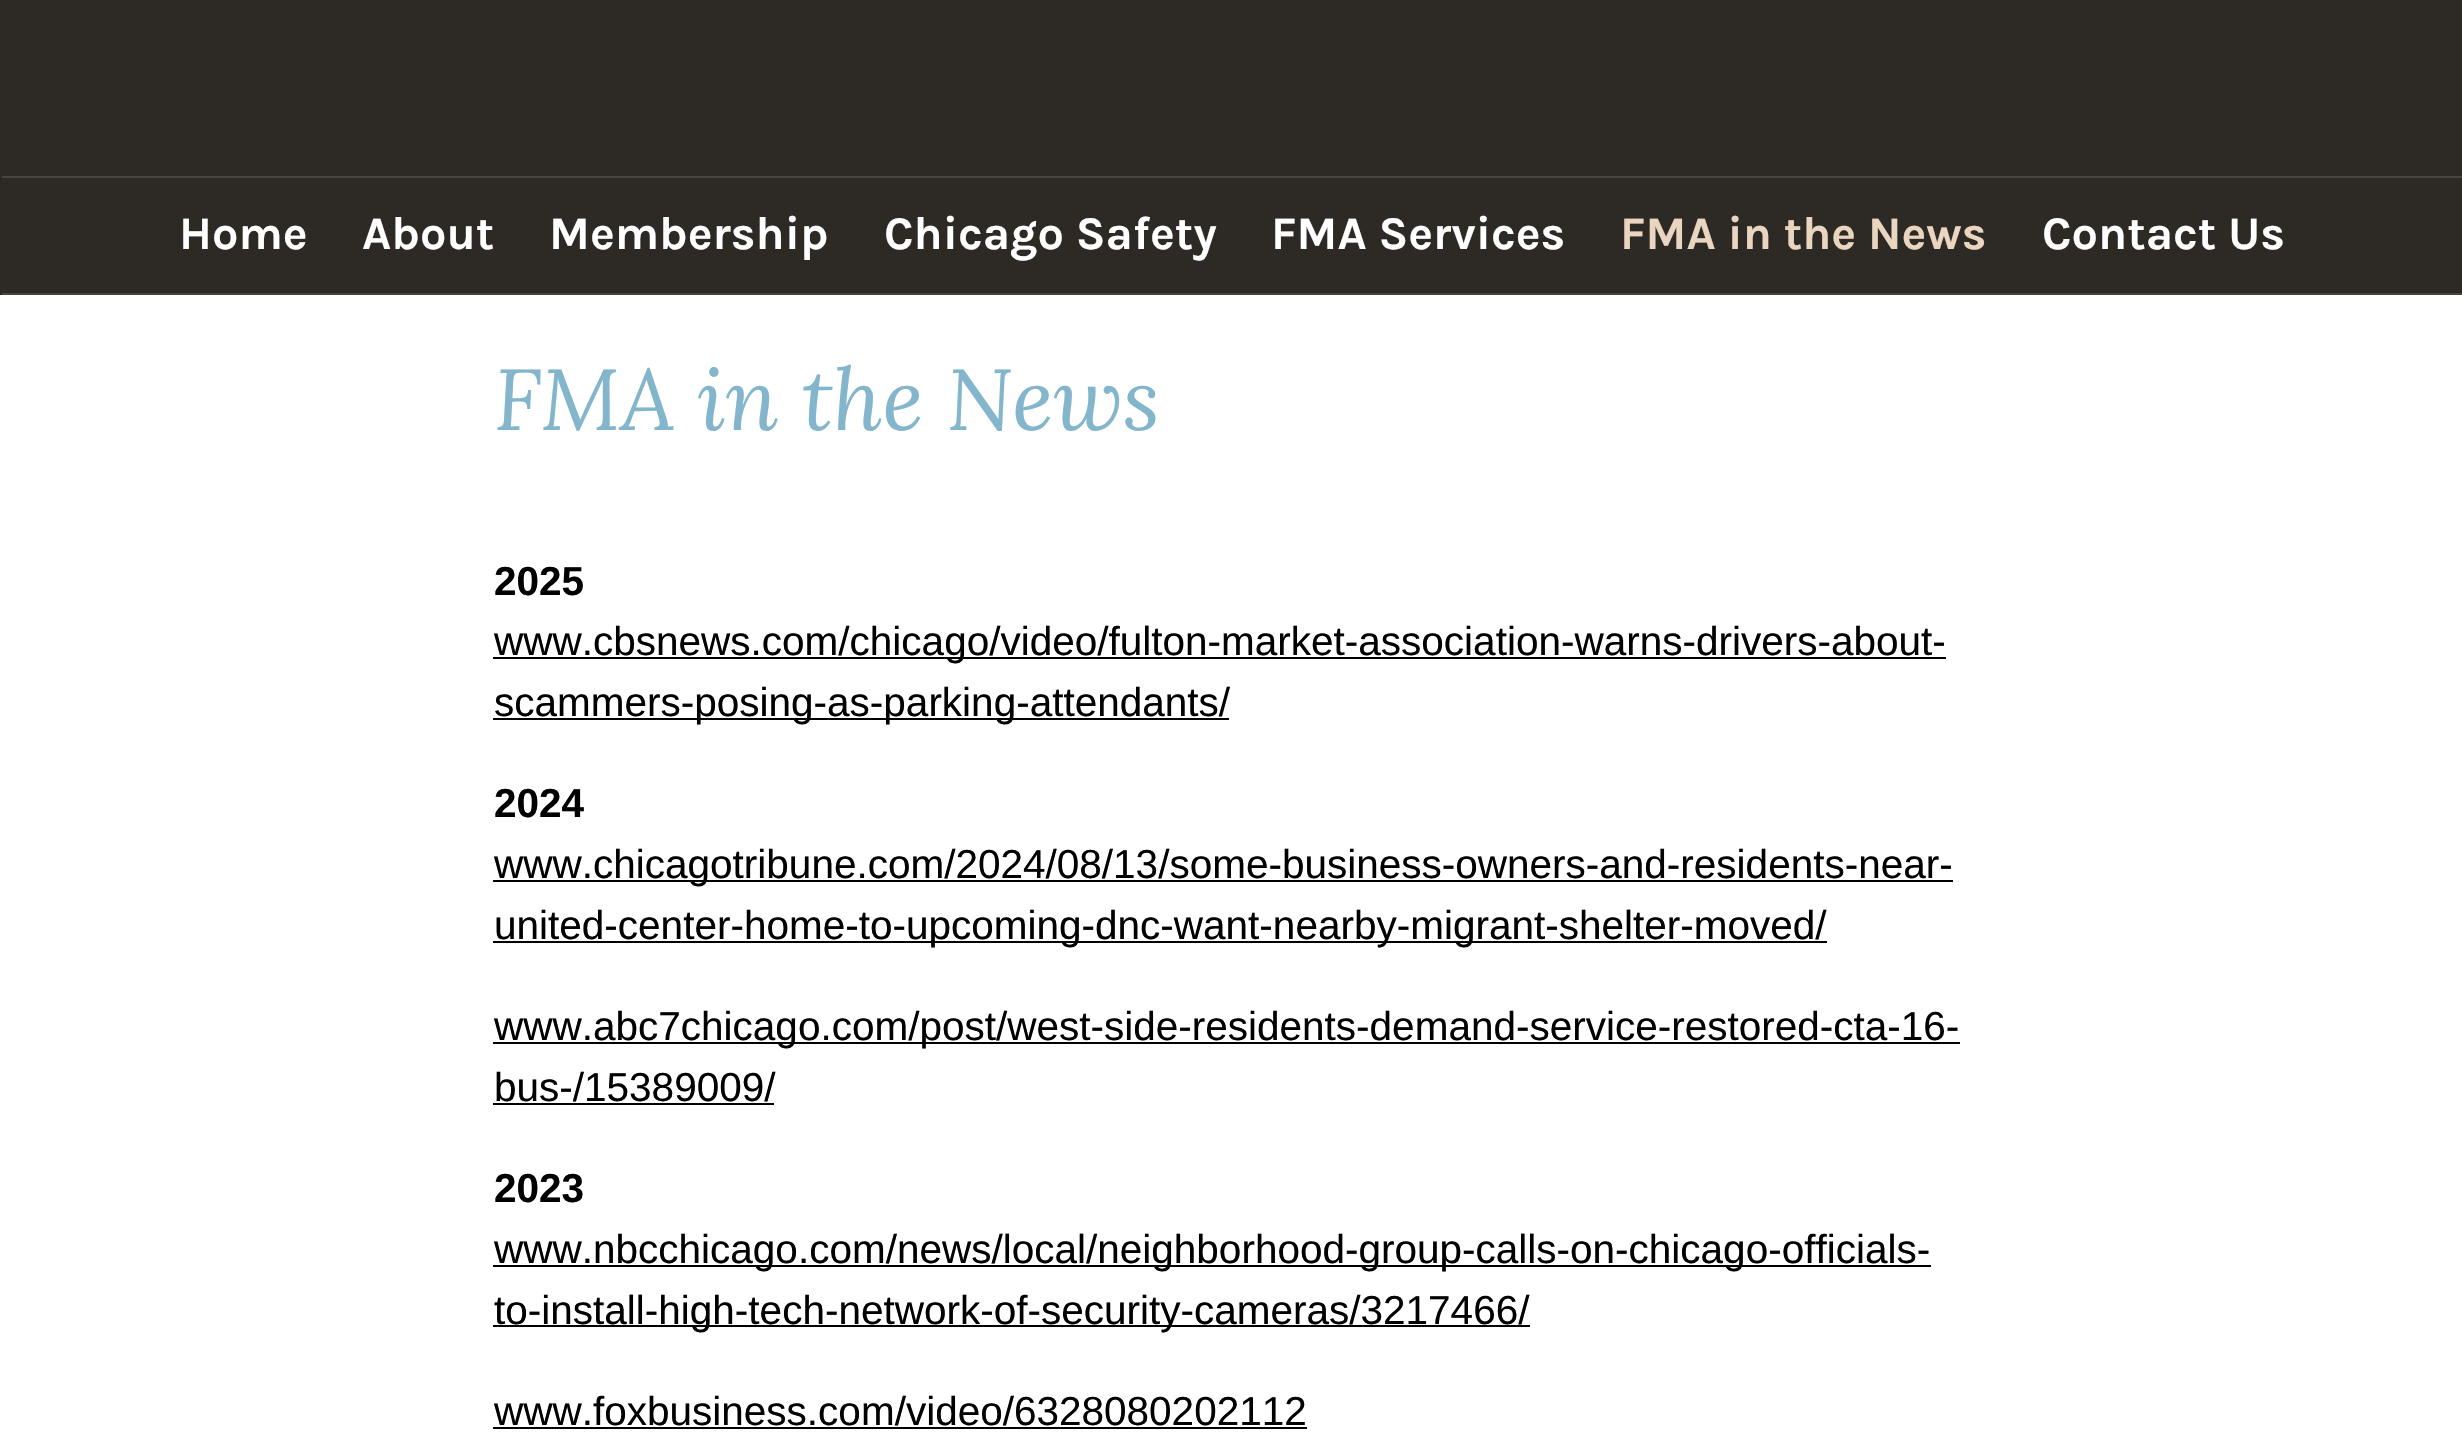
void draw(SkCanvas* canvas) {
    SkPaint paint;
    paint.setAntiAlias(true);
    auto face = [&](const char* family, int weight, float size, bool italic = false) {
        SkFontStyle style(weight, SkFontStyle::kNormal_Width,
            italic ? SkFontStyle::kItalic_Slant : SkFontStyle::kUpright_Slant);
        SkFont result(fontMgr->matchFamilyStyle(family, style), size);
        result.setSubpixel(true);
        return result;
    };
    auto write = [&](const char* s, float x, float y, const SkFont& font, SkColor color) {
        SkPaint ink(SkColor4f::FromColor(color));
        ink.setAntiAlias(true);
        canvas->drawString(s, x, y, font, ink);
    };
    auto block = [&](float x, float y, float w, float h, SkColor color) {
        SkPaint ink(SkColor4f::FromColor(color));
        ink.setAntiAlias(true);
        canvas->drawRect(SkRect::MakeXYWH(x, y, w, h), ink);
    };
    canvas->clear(SK_ColorWHITE);
    block(0, 0, 2462, 295, SkColorSetRGB(45, 42, 38));
    block(2, 176, 2460, 2, SkColorSetRGB(73, 68, 61));
    block(2, 293, 2460, 2, SkColorSetRGB(73, 68, 61));
    auto kFont1 = face("Karla", 700, 46.75f);
    write("Home", 179, 249, kFont1, SK_ColorWHITE);
    write("About", 362, 249, kFont1, SK_ColorWHITE);
    write("Membership", 549, 249, kFont1, SK_ColorWHITE);
    write("Chicago Safety", 884, 249, kFont1, SK_ColorWHITE);
    write("FMA Services", 1271, 249, kFont1, SK_ColorWHITE);
    write("FMA in the News", 1620, 249, kFont1, SkColorSetRGB(233, 213, 192));
    write("Contact Us", 2042, 249, kFont1, SK_ColorWHITE);
    auto kFont2 = face("Lora", 400, 86.5f, true);
    write("FMA in the News", 494, 430, kFont2, SkColorSetRGB(131, 182, 204));
    auto kFont3 = face("Liberation Sans", 700, 40.5f);
    write("2025", 494, 595, kFont3, SK_ColorBLACK);
    block(493, 657, 1453, 2, SK_ColorBLACK);
    auto kFont4 = face("Liberation Sans", 400, 40.5f);
    write("www.cbsnews.com/chicago/video/fulton-market-association-warns-drivers-about-", 494, 655, kFont4, SK_ColorBLACK);
    block(493, 718, 736, 2, SK_ColorBLACK);
    write("scammers-posing-as-parking-attendants/", 494, 716, kFont4, SK_ColorBLACK);
    write("2024", 494, 817, kFont3, SK_ColorBLACK);
    block(493, 880, 1460, 2, SK_ColorBLACK);
    write("www.chicagotribune.com/2024/08/13/some-business-owners-and-residents-near-", 494, 878, kFont4, SK_ColorBLACK);
    block(493, 941, 1334, 2, SK_ColorBLACK);
    write("united-center-home-to-upcoming-dnc-want-nearby-migrant-shelter-moved/", 494, 939, kFont4, SK_ColorBLACK);
    block(493, 1042, 1467, 2, SK_ColorBLACK);
    write("www.abc7chicago.com/post/west-side-residents-demand-service-restored-cta-16-", 494, 1040, kFont4, SK_ColorBLACK);
    write("bus-/15389009/", 494, 1101, kFont4, SK_ColorBLACK);
    block(493, 1103, 281, 2, SK_ColorBLACK);
    write("2023", 494, 1202, kFont3, SK_ColorBLACK);
    block(493, 1265, 1438, 2, SK_ColorBLACK);
    write("www.nbcchicago.com/news/local/neighborhood-group-calls-on-chicago-officials-", 494, 1263, kFont4, SK_ColorBLACK);
    block(493, 1325, 1037, 2, SK_ColorBLACK);
    write("to-install-high-tech-network-of-security-cameras/3217466/", 494, 1324, kFont4, SK_ColorBLACK);
    write("www.foxbusiness.com/video/6328080202112", 494, 1425, kFont4, SK_ColorBLACK);
    block(493, 1427, 814, 2, SK_ColorBLACK);
}
